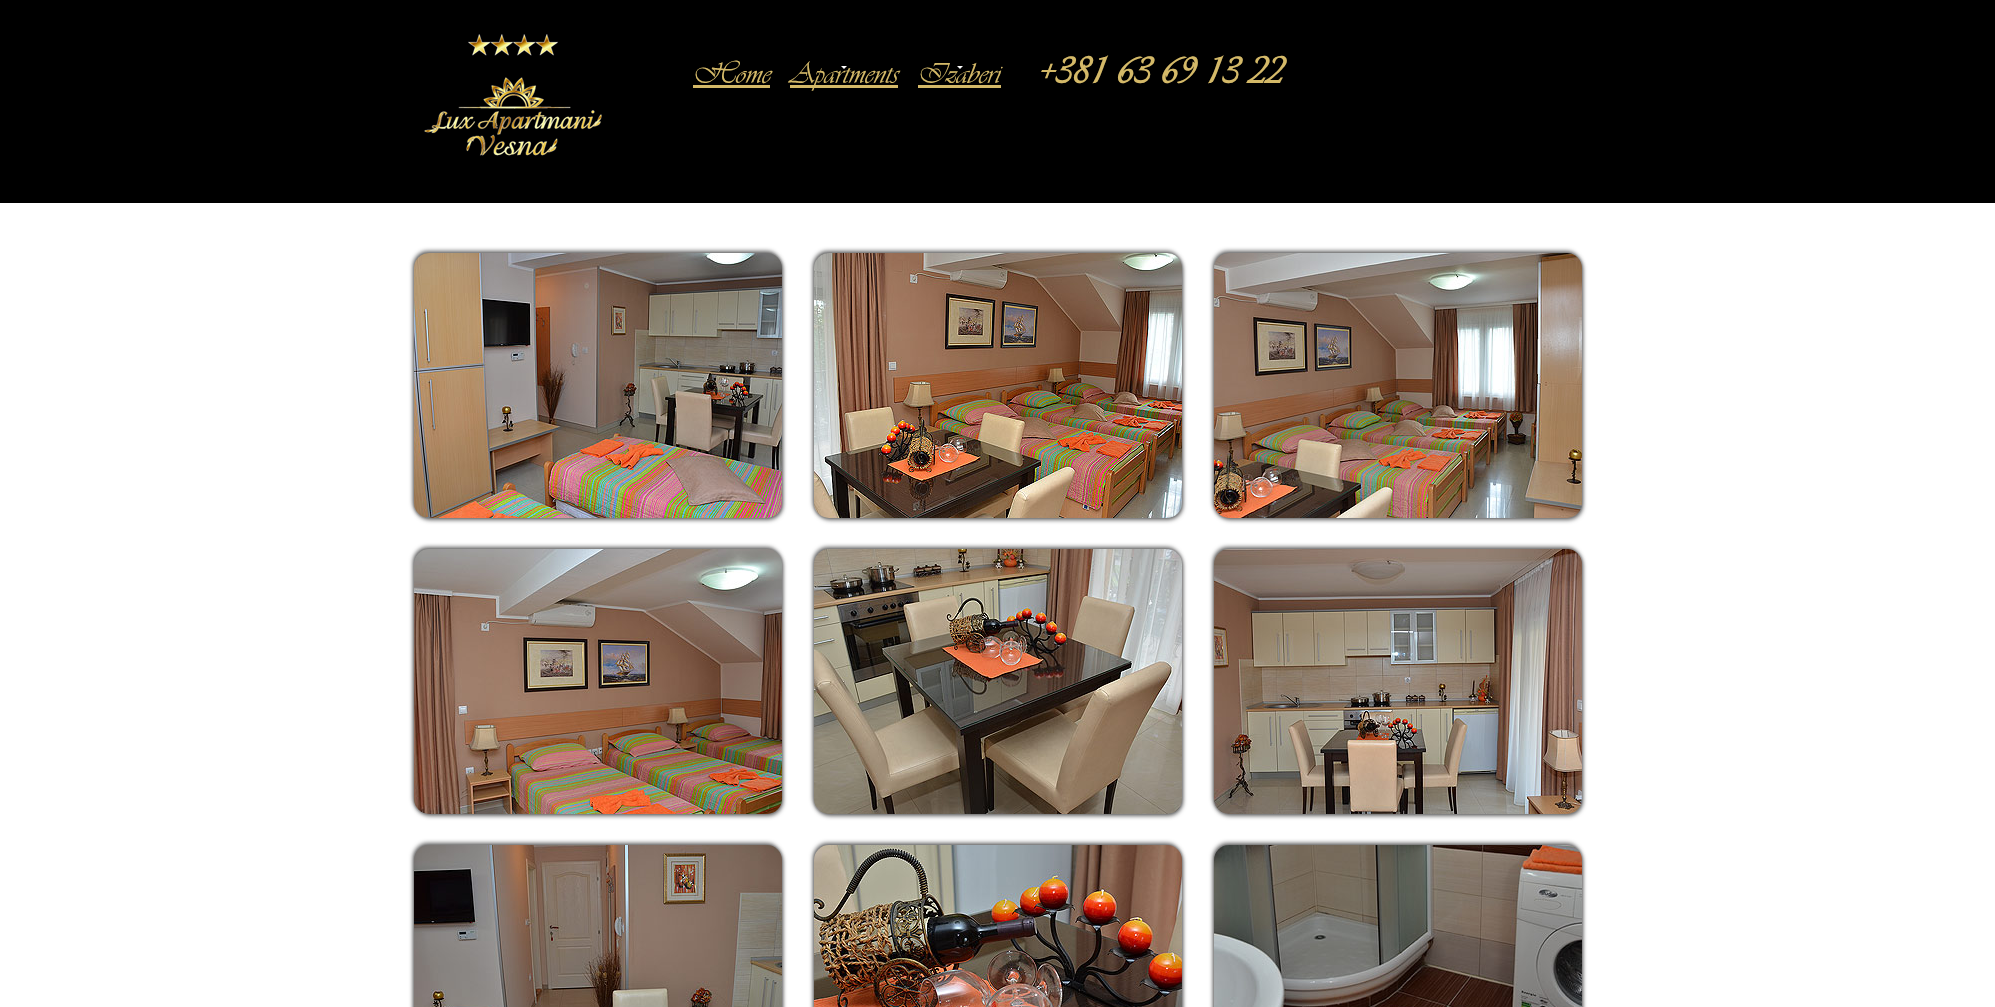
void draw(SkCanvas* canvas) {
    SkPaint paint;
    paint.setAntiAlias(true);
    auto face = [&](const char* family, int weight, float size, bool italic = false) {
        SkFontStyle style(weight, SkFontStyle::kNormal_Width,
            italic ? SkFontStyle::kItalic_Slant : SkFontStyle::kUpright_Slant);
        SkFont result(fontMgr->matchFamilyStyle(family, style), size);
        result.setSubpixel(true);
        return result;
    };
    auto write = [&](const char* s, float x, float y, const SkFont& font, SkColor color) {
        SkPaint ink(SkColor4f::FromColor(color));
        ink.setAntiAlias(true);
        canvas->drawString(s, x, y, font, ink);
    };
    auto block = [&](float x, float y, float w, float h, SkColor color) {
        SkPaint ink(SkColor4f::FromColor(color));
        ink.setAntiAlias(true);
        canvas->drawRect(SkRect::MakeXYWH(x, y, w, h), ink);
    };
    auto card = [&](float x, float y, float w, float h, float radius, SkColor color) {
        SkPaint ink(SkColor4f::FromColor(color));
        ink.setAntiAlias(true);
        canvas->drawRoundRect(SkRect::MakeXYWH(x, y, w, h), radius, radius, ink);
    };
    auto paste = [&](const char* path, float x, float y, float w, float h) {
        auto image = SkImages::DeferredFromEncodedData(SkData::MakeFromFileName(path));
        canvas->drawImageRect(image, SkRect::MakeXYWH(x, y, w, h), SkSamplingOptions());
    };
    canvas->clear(SK_ColorWHITE);
    block(0, 0, 1995, 203, SK_ColorBLACK);
    paste("pic1.png", 424, 34, 178, 122);
    auto kFont1 = face("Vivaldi", 400, 30);
    write("Home", 693, 83, kFont1, SkColorSetRGB(212, 185, 104));
    block(693, 85, 77, 3, SkColorSetRGB(212, 185, 104));
    block(790, 85, 108, 3, SkColorSetRGB(212, 185, 104));
    write("Apartments", 790, 83, kFont1, SkColorSetRGB(212, 185, 104));
    paint.setColor(SK_ColorWHITE);
    canvas->drawPath(SkPathBuilder().moveTo(841, 66).lineTo(847, 66).lineTo(844, 69).close().detach(), paint);
    write("Izaberi", 918, 83, kFont1, SkColorSetRGB(212, 185, 104));
    block(918, 85, 83, 3, SkColorSetRGB(212, 185, 104));
    canvas->drawPath(SkPathBuilder().moveTo(957, 66).lineTo(963, 66).lineTo(960, 69).close().detach(), paint);
    auto kFont2 = face("Vivaldi", 700, 40);
    write("+381 63 69 13 22", 1038, 83, kFont2, SkColorSetRGB(212, 185, 104));
    card(413, 252, 370, 267, 15, SkColorSetRGB(241, 240, 241));
    paint.setColor(SkColorSetRGB(102, 102, 102));
    paint.setMaskFilter(SkMaskFilter::MakeBlur(kNormal_SkBlurStyle, 2));
    canvas->drawRoundRect(SkRect::MakeXYWH(413, 251, 368, 265), 15, 15, paint);
    paint.setMaskFilter(nullptr);
    paint.setMaskFilter(SkMaskFilter::MakeBlur(kNormal_SkBlurStyle, 2));
    canvas->drawRoundRect(SkRect::MakeXYWH(415, 255, 368, 265), 15, 15, paint);
    paint.setMaskFilter(nullptr);
    paste("pic2.png", 414, 253, 368, 265);
    card(813, 252, 370, 267, 15, SkColorSetRGB(241, 240, 241));
    paint.setMaskFilter(SkMaskFilter::MakeBlur(kNormal_SkBlurStyle, 2));
    canvas->drawRoundRect(SkRect::MakeXYWH(813, 251, 368, 265), 15, 15, paint);
    paint.setMaskFilter(nullptr);
    paint.setMaskFilter(SkMaskFilter::MakeBlur(kNormal_SkBlurStyle, 2));
    canvas->drawRoundRect(SkRect::MakeXYWH(815, 255, 368, 265), 15, 15, paint);
    paint.setMaskFilter(nullptr);
    paste("pic3.png", 814, 253, 368, 265);
    card(1213, 252, 370, 267, 15, SkColorSetRGB(241, 240, 241));
    paint.setMaskFilter(SkMaskFilter::MakeBlur(kNormal_SkBlurStyle, 2));
    canvas->drawRoundRect(SkRect::MakeXYWH(1213, 251, 368, 265), 15, 15, paint);
    paint.setMaskFilter(nullptr);
    paint.setMaskFilter(SkMaskFilter::MakeBlur(kNormal_SkBlurStyle, 2));
    canvas->drawRoundRect(SkRect::MakeXYWH(1215, 255, 368, 265), 15, 15, paint);
    paint.setMaskFilter(nullptr);
    paste("pic4.png", 1214, 253, 368, 265);
    card(413, 548, 370, 267, 15, SkColorSetRGB(241, 240, 241));
    paint.setMaskFilter(SkMaskFilter::MakeBlur(kNormal_SkBlurStyle, 2));
    canvas->drawRoundRect(SkRect::MakeXYWH(413, 547, 368, 265), 15, 15, paint);
    paint.setMaskFilter(nullptr);
    paint.setMaskFilter(SkMaskFilter::MakeBlur(kNormal_SkBlurStyle, 2));
    canvas->drawRoundRect(SkRect::MakeXYWH(415, 551, 368, 265), 15, 15, paint);
    paint.setMaskFilter(nullptr);
    paste("pic5.png", 414, 549, 368, 265);
    card(813, 548, 370, 267, 15, SkColorSetRGB(241, 240, 241));
    paint.setMaskFilter(SkMaskFilter::MakeBlur(kNormal_SkBlurStyle, 2));
    canvas->drawRoundRect(SkRect::MakeXYWH(813, 547, 368, 265), 15, 15, paint);
    paint.setMaskFilter(nullptr);
    paint.setMaskFilter(SkMaskFilter::MakeBlur(kNormal_SkBlurStyle, 2));
    canvas->drawRoundRect(SkRect::MakeXYWH(815, 551, 368, 265), 15, 15, paint);
    paint.setMaskFilter(nullptr);
    paste("pic6.png", 814, 549, 368, 265);
    card(1213, 548, 370, 267, 15, SkColorSetRGB(241, 240, 241));
    paint.setMaskFilter(SkMaskFilter::MakeBlur(kNormal_SkBlurStyle, 2));
    canvas->drawRoundRect(SkRect::MakeXYWH(1213, 547, 368, 265), 15, 15, paint);
    paint.setMaskFilter(nullptr);
    paint.setMaskFilter(SkMaskFilter::MakeBlur(kNormal_SkBlurStyle, 2));
    canvas->drawRoundRect(SkRect::MakeXYWH(1215, 551, 368, 265), 15, 15, paint);
    paint.setMaskFilter(nullptr);
    paste("pic7.png", 1214, 549, 368, 265);
    card(413, 844, 370, 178, 15, SkColorSetRGB(241, 240, 241));
    paint.setMaskFilter(SkMaskFilter::MakeBlur(kNormal_SkBlurStyle, 2));
    canvas->drawRoundRect(SkRect::MakeXYWH(413, 843, 368, 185), 15, 15, paint);
    paint.setMaskFilter(nullptr);
    paint.setMaskFilter(SkMaskFilter::MakeBlur(kNormal_SkBlurStyle, 2));
    canvas->drawRoundRect(SkRect::MakeXYWH(415, 847, 368, 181), 15, 15, paint);
    paint.setMaskFilter(nullptr);
    paste("pic8.png", 414, 845, 368, 162);
    card(813, 844, 370, 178, 15, SkColorSetRGB(241, 240, 241));
    paint.setMaskFilter(SkMaskFilter::MakeBlur(kNormal_SkBlurStyle, 2));
    canvas->drawRoundRect(SkRect::MakeXYWH(813, 843, 368, 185), 15, 15, paint);
    paint.setMaskFilter(nullptr);
    paint.setMaskFilter(SkMaskFilter::MakeBlur(kNormal_SkBlurStyle, 2));
    canvas->drawRoundRect(SkRect::MakeXYWH(815, 847, 368, 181), 15, 15, paint);
    paint.setMaskFilter(nullptr);
    paste("pic9.png", 814, 845, 368, 162);
    card(1213, 844, 370, 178, 15, SkColorSetRGB(241, 240, 241));
    paint.setMaskFilter(SkMaskFilter::MakeBlur(kNormal_SkBlurStyle, 2));
    canvas->drawRoundRect(SkRect::MakeXYWH(1213, 843, 368, 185), 15, 15, paint);
    paint.setMaskFilter(nullptr);
    paint.setMaskFilter(SkMaskFilter::MakeBlur(kNormal_SkBlurStyle, 2));
    canvas->drawRoundRect(SkRect::MakeXYWH(1215, 847, 368, 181), 15, 15, paint);
    paint.setMaskFilter(nullptr);
    paste("pic10.png", 1214, 845, 368, 162);
}
